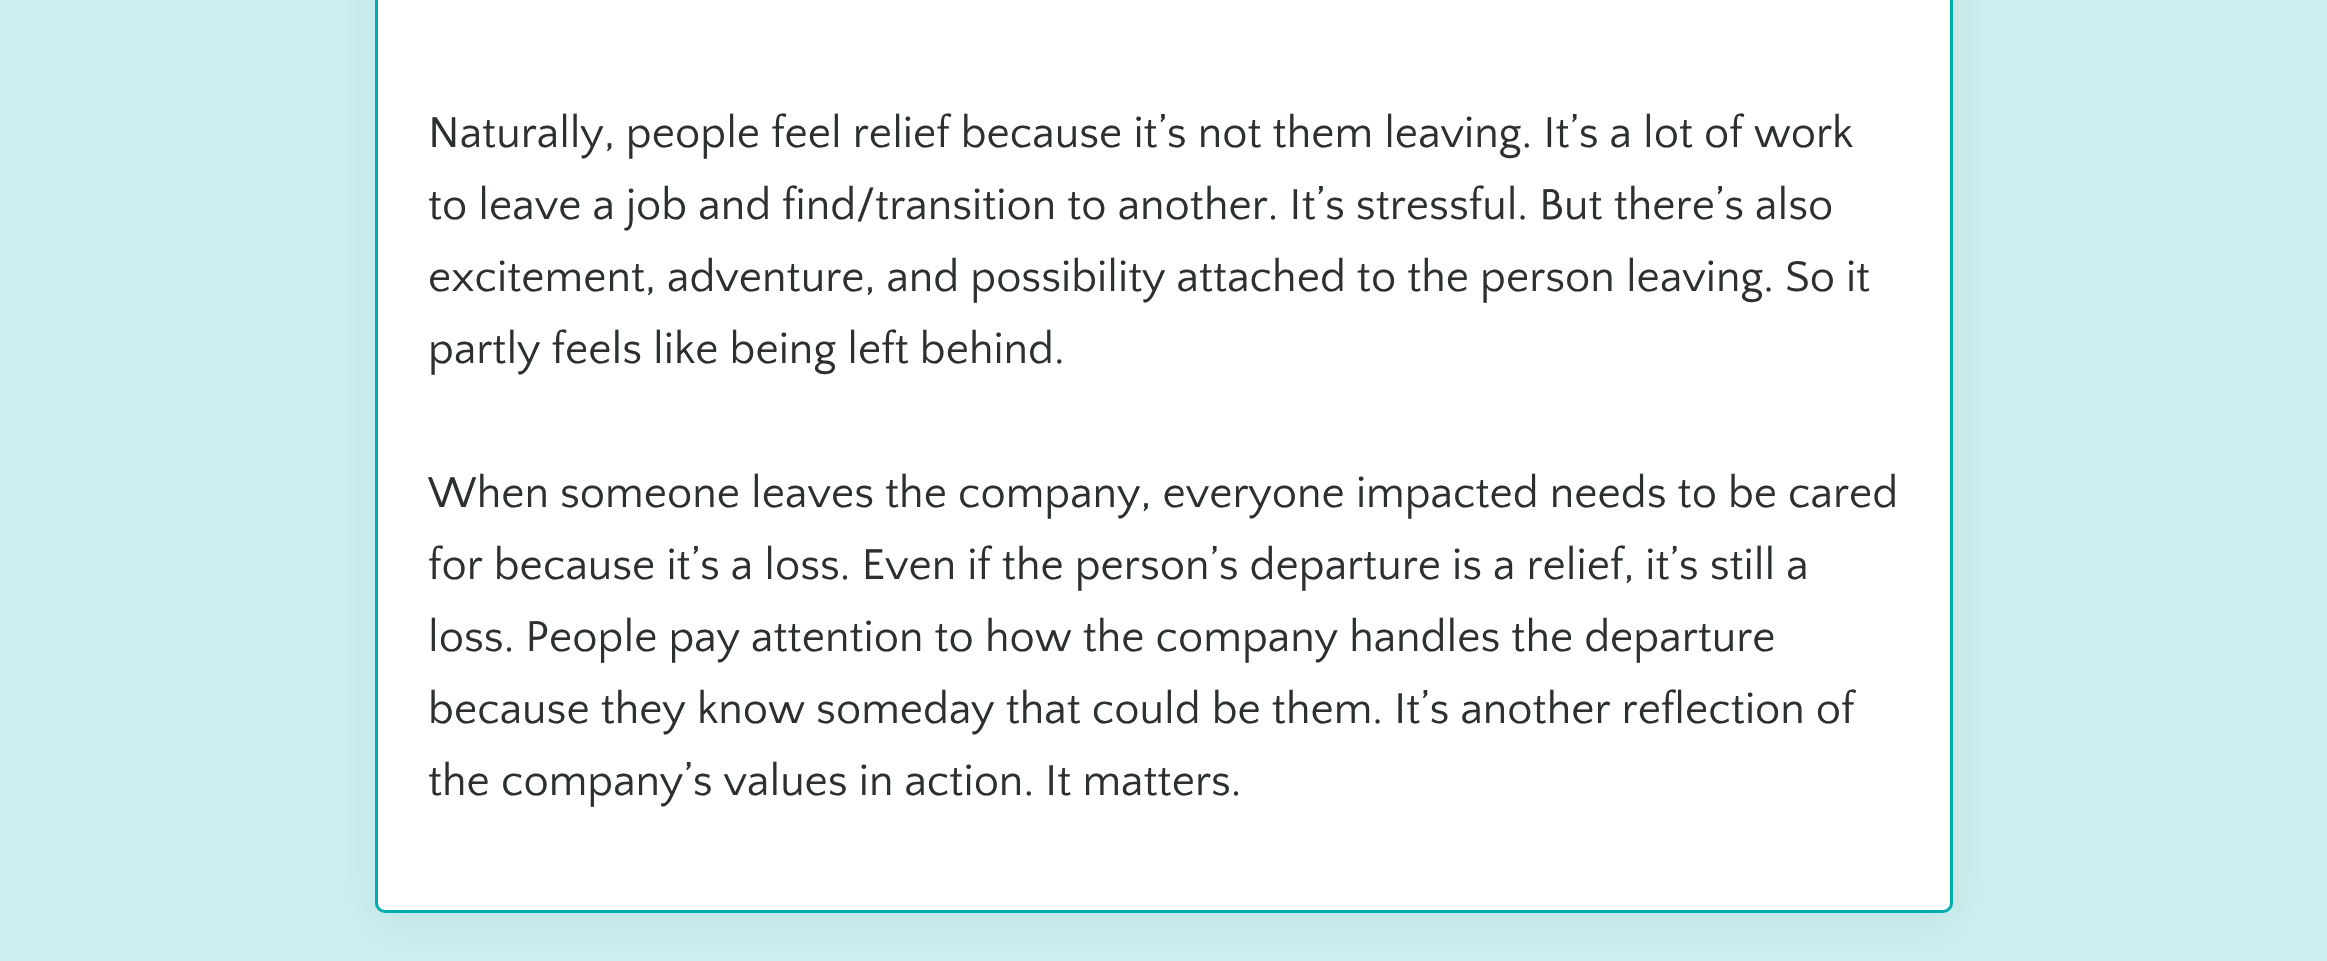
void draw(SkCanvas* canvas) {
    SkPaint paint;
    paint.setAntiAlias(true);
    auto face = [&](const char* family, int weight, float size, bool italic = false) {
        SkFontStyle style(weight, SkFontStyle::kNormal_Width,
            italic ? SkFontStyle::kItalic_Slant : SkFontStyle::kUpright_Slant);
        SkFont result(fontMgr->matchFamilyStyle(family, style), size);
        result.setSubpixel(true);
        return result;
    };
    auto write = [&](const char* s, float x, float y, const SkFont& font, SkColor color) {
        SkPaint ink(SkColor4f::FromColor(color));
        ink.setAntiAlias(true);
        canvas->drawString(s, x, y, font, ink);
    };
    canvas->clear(SkColorSetRGB(206, 240, 241));
    paint.setColor(SkColorSetARGB(18, 0, 0, 0));
    paint.setMaskFilter(SkMaskFilter::MakeBlur(kNormal_SkBlurStyle, 25));
    canvas->drawRoundRect(SkRect::MakeXYWH(375, -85, 1578, 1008), 10, 10, paint);
    paint.setMaskFilter(nullptr);
    paint.setColor(SK_ColorWHITE);
    canvas->drawRoundRect(SkRect::MakeXYWH(376.5f, -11.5f, 1575, 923), 8.5f, 8.5f, paint);
    paint.setStyle(SkPaint::kStroke_Style);
    paint.setStrokeWidth(3);
    paint.setColor(SkColorSetRGB(0, 172, 174));
    canvas->drawRoundRect(SkRect::MakeXYWH(376.5f, -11.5f, 1575, 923), 8.5f, 8.5f, paint);
    auto kFont1 = face("Quattrocento Sans", 400, 45);
    write("Naturally, people feel relief because it’s not them leaving. It’s a lot of work", 428, 147, kFont1, SkColorSetRGB(45, 48, 49));
    write("to leave a job and find/transition to another. It’s stressful. But there’s also", 428, 219, kFont1, SkColorSetRGB(45, 48, 49));
    write("excitement, adventure, and possibility attached to the person leaving. So it", 428, 291, kFont1, SkColorSetRGB(45, 48, 49));
    write("partly feels like being left behind.", 428, 363, kFont1, SkColorSetRGB(45, 48, 49));
    write("When someone leaves the company, everyone impacted needs to be cared", 428, 507, kFont1, SkColorSetRGB(45, 48, 49));
    write("for because it’s a loss. Even if the person’s departure is a relief, it’s still a", 428, 579, kFont1, SkColorSetRGB(45, 48, 49));
    write("loss. People pay attention to how the company handles the departure", 428, 651, kFont1, SkColorSetRGB(45, 48, 49));
    write("because they know someday that could be them. It’s another reflection of", 428, 723, kFont1, SkColorSetRGB(45, 48, 49));
    write("the company’s values in action. It matters.", 428, 795, kFont1, SkColorSetRGB(45, 48, 49));
}
